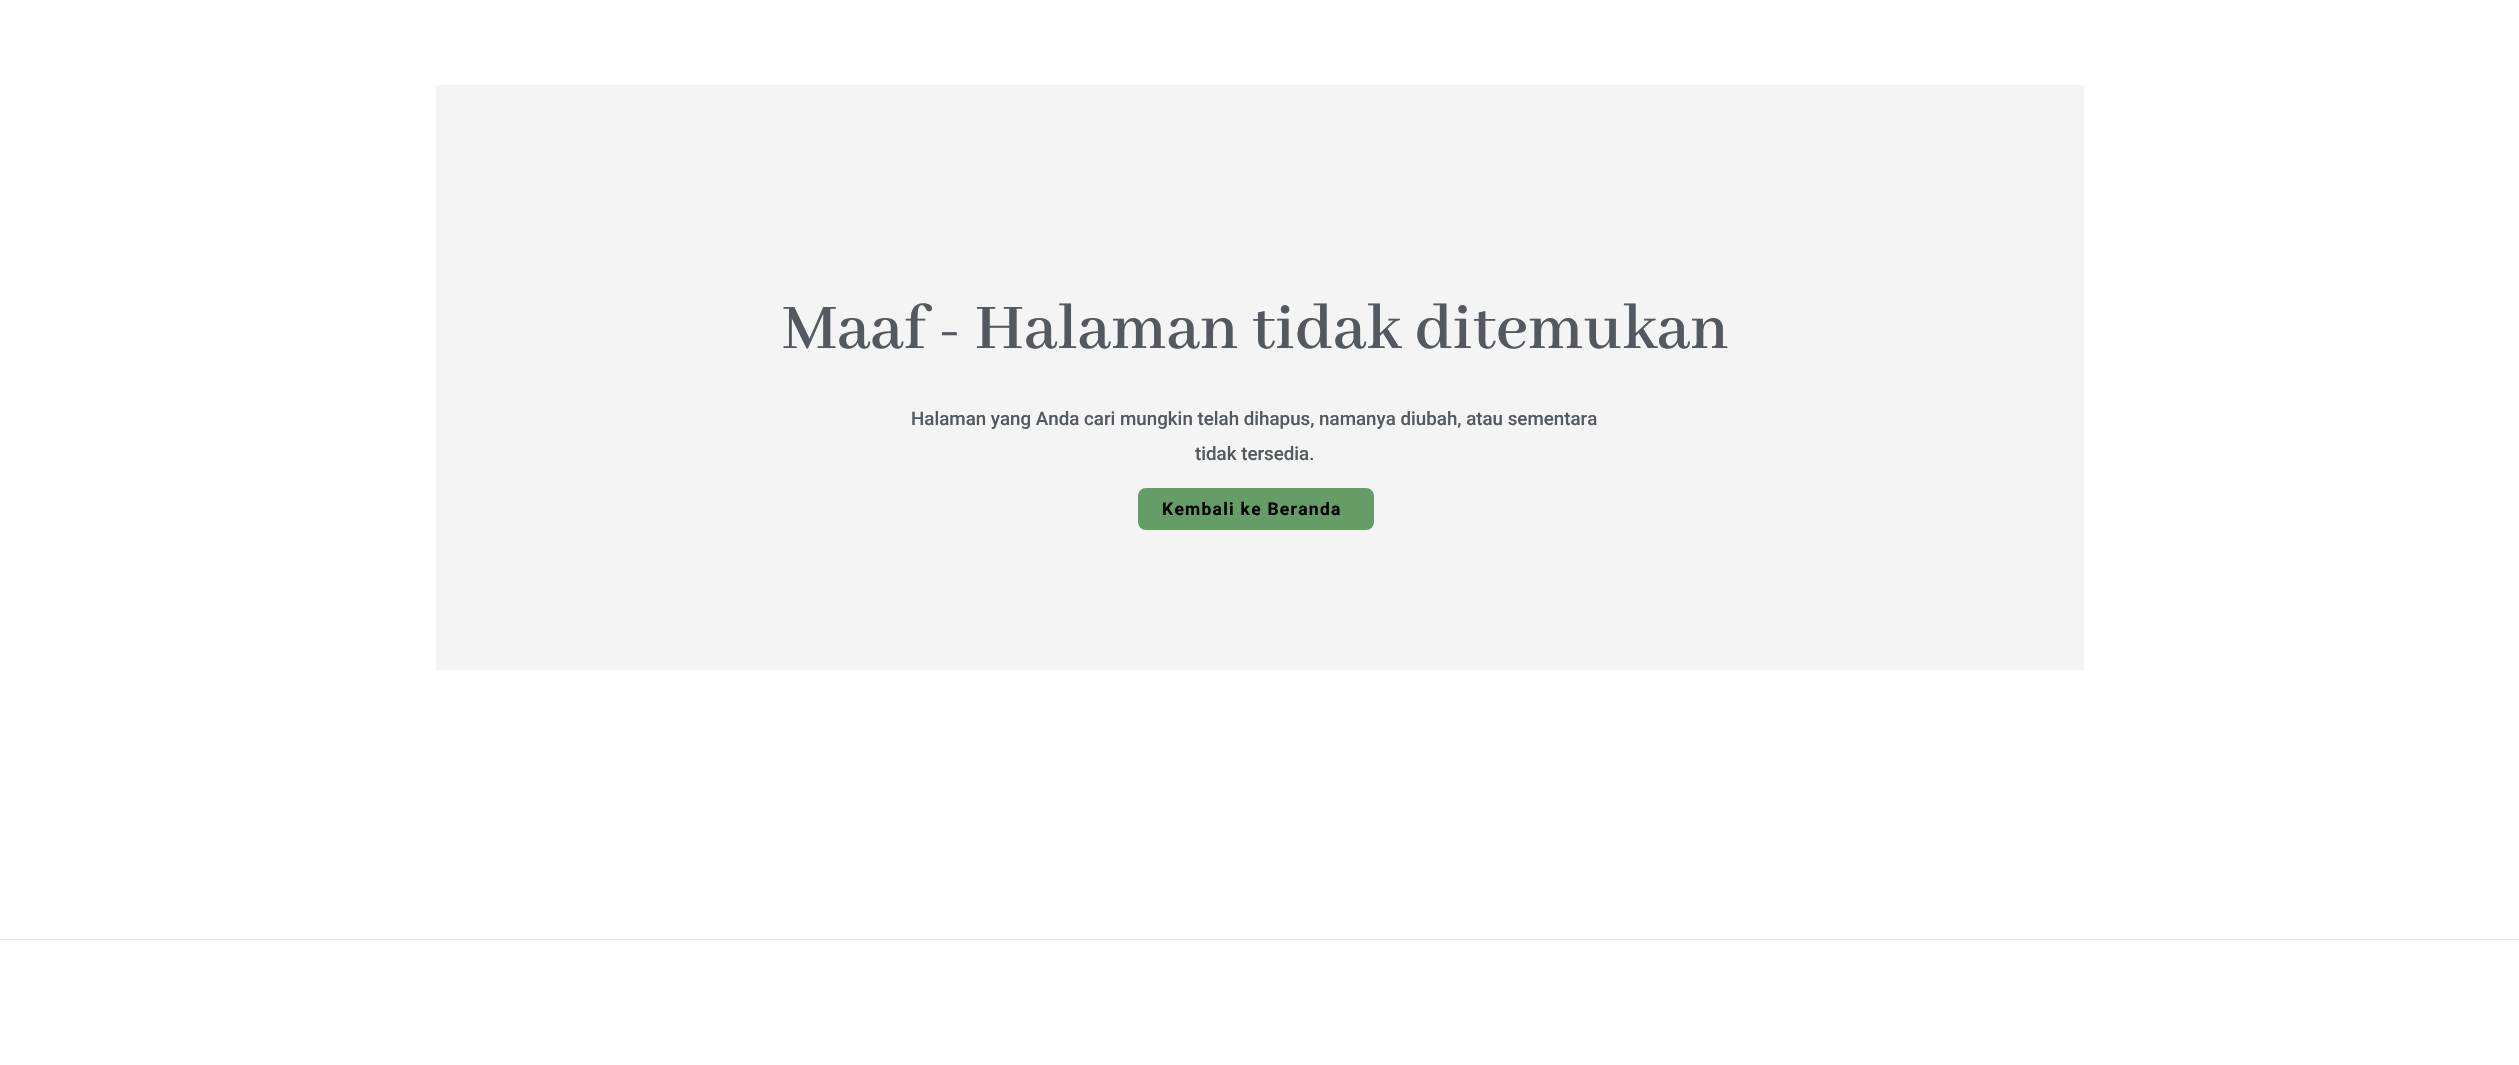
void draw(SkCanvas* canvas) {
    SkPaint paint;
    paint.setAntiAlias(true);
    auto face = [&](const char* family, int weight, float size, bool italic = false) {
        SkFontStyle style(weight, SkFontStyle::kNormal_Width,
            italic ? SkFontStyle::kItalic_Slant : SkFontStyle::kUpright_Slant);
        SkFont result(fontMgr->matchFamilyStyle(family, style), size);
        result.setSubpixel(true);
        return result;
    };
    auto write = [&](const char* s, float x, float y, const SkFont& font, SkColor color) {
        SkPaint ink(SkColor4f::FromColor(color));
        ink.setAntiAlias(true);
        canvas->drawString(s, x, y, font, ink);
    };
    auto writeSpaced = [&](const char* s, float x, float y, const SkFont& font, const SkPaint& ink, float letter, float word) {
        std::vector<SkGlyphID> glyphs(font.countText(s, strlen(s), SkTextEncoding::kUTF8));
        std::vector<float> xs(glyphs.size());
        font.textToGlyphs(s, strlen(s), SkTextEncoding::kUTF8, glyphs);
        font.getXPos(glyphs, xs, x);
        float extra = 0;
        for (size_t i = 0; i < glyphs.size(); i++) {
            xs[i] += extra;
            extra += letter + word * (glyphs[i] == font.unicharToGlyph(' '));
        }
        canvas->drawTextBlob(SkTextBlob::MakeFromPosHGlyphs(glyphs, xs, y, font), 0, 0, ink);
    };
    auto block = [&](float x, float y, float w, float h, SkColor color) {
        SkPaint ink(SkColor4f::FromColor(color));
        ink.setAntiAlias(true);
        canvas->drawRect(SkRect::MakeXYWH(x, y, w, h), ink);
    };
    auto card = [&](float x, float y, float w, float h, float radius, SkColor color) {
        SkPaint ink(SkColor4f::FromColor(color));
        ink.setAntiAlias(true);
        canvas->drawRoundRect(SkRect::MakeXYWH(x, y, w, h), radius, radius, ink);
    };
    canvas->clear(SK_ColorWHITE);
    block(436, 85, 1648, 585, SkColorSetRGB(244, 244, 244));
    auto kFont1 = face("Abhaya Libre", 600, 70);
    write("Maaf - Halaman tidak ditemukan", 782, 348, kFont1, SkColorSetRGB(84, 89, 95));
    auto kFont2 = face("Roboto", 500, 18.75f);
    write("Halaman yang Anda cari mungkin telah dihapus, namanya diubah, atau sementara", 911, 425, kFont2, SkColorSetRGB(84, 89, 95));
    write("tidak tersedia.", 1195, 460, kFont2, SkColorSetRGB(84, 89, 95));
    card(1138, 488, 236, 42, 8, SkColorSetRGB(100, 157, 102));
    auto kFont3 = face("Roboto", 700, 17.5f);
    paint.setColor(SK_ColorBLACK);
    writeSpaced("Kembali ke Beranda", 1162, 515, kFont3, paint, 1.25f, 0);
    block(0, 939, 2519, 1, SkColorSetRGB(213, 234, 216));
}
